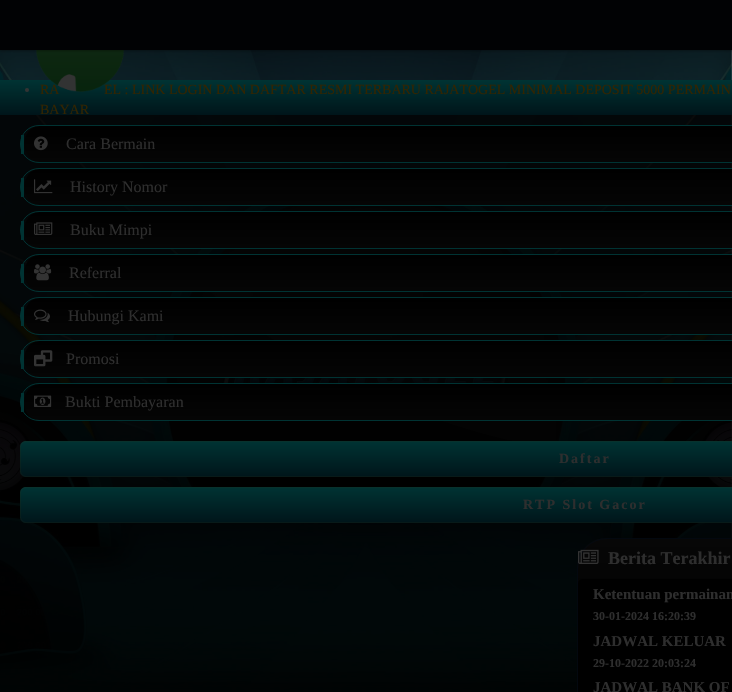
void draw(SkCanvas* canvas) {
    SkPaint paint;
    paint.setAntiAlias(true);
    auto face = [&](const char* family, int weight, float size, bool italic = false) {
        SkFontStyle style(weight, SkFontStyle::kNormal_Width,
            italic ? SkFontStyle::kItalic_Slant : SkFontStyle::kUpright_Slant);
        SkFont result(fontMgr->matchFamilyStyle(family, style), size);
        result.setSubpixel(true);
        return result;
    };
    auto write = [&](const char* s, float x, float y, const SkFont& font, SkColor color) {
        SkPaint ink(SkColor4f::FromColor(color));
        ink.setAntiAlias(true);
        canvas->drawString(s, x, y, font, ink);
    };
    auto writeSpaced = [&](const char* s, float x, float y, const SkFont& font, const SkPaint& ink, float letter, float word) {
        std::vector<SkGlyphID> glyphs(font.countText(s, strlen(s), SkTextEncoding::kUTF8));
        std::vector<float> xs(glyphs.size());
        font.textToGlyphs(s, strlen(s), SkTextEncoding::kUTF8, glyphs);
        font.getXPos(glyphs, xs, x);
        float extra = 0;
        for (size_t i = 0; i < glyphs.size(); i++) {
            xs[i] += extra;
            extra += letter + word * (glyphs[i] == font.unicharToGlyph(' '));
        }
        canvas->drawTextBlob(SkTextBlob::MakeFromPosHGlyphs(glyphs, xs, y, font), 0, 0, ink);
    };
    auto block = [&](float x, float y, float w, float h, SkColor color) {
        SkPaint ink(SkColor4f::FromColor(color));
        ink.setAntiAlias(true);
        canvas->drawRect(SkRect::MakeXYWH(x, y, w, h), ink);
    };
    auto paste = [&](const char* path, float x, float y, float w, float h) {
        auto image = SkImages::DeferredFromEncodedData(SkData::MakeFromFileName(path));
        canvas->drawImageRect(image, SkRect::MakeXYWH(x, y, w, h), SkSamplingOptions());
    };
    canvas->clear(SK_ColorWHITE);
    paste("pic1.png", 0, 50, 732, 642);
    {
        const SkColor colors[] = {SkColorSetRGB(0, 51, 51), SkColorSetRGB(0, 21, 26)};
        const float stops[] = {0, 1};
        const SkPoint ends[] = {{585, 80}, {585, 115}};
        paint.setShader(SkGradientShader::MakeLinear(ends, colors, stops, 2, SkTileMode::kClamp));
        paint.setAlpha(255);
    }
    canvas->drawRect(SkRect::MakeXYWH(0, 80, 732, 35), paint);
    auto kFont1 = face("Liberation Serif", 400, 14);
    write("RA", 40, 94, kFont1, SkColorSetRGB(51, 36, 0));
    write("EL : LINK LOGIN DAN DAFTAR RESMI TERBARU RAJATOGEL MINIMAL DEPOSIT 5000 PERMAIN", 104, 94, kFont1, SkColorSetRGB(51, 36, 0));
    paste("pic2.png", 35, 50, 90, 42);
    paint.setShader(nullptr);
    paint.setColor(SkColorSetARGB(77, 0, 0, 0));
    paint.setMaskFilter(SkMaskFilter::MakeBlur(kNormal_SkBlurStyle, 1));
    canvas->drawRect(SkRect::MakeXYWH(0, 1, 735, 50), paint);
    paint.setMaskFilter(nullptr);
    block(0, 0, 732, 50, SkColorSetRGB(1, 2, 4));
    paint.setColor(SkColorSetRGB(51, 51, 51));
    canvas->drawCircle(27, 90, 2, paint);
    write("BAYAR", 40, 114, kFont1, SkColorSetRGB(51, 36, 0));
    block(0, 115, 732, 577, SkColorSetARGB(204, 0, 0, 0));
    {
        const SkColor colors[] = {SK_ColorBLACK, SkColorSetRGB(5, 5, 5)};
        const float stops[] = {0, 1};
        const SkPoint ends[] = {{572, 126}, {572, 162}};
        paint.setShader(SkGradientShader::MakeLinear(ends, colors, stops, 2, SkTileMode::kClamp));
        paint.setAlpha(255);
    }
    canvas->drawPath(SkPathBuilder().moveTo(39, 126).lineTo(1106, 126).cubicTo(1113, 126, 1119, 134, 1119, 144).cubicTo(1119, 154, 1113, 162, 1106, 162).lineTo(39, 162).cubicTo(31, 162, 24, 154, 24, 144).cubicTo(24, 134, 31, 126, 39, 126).close().detach(), paint);
    paint.setStyle(SkPaint::kStroke_Style);
    paint.setStrokeWidth(1);
    paint.setShader(nullptr);
    paint.setColor(SkColorSetRGB(0, 51, 51));
    canvas->drawRoundRect(SkRect::MakeXYWH(20.5f, 125.5f, 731, 37), 18.5f, 18.5f, paint);
    block(21, 135, 3, 19, SkColorSetRGB(0, 51, 51));
    paste("pic3.png", 34, 136, 14, 15);
    auto kFont2 = face("Liberation Serif", 400, 16);
    write("Cara Bermain", 66, 149, kFont2, SkColorSetRGB(46, 46, 46));
    paint.setStyle(SkPaint::kFill_Style);
    {
        const SkColor colors[] = {SK_ColorBLACK, SkColorSetRGB(5, 5, 5)};
        const float stops[] = {0, 1};
        const SkPoint ends[] = {{572, 169}, {572, 205}};
        paint.setShader(SkGradientShader::MakeLinear(ends, colors, stops, 2, SkTileMode::kClamp));
        paint.setAlpha(255);
    }
    canvas->drawPath(SkPathBuilder().moveTo(39, 169).lineTo(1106, 169).cubicTo(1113, 169, 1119, 177, 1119, 187).cubicTo(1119, 197, 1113, 205, 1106, 205).lineTo(39, 205).cubicTo(31, 205, 24, 197, 24, 187).cubicTo(24, 177, 31, 169, 39, 169).close().detach(), paint);
    paint.setStyle(SkPaint::kStroke_Style);
    paint.setShader(nullptr);
    paint.setColor(SkColorSetRGB(0, 51, 51));
    canvas->drawRoundRect(SkRect::MakeXYWH(20.5f, 168.5f, 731, 37), 18.5f, 18.5f, paint);
    block(21, 178, 3, 19, SkColorSetRGB(0, 51, 51));
    paste("pic4.png", 34, 179, 19, 15);
    write("History Nomor", 70, 192, kFont2, SkColorSetRGB(46, 46, 46));
    paint.setStyle(SkPaint::kFill_Style);
    {
        const SkColor colors[] = {SK_ColorBLACK, SkColorSetRGB(5, 5, 5)};
        const float stops[] = {0, 1};
        const SkPoint ends[] = {{572, 212}, {572, 248}};
        paint.setShader(SkGradientShader::MakeLinear(ends, colors, stops, 2, SkTileMode::kClamp));
        paint.setAlpha(255);
    }
    canvas->drawPath(SkPathBuilder().moveTo(39, 212).lineTo(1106, 212).cubicTo(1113, 212, 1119, 220, 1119, 230).cubicTo(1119, 240, 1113, 248, 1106, 248).lineTo(39, 248).cubicTo(31, 248, 24, 240, 24, 230).cubicTo(24, 220, 31, 212, 39, 212).close().detach(), paint);
    paint.setStyle(SkPaint::kStroke_Style);
    paint.setShader(nullptr);
    paint.setColor(SkColorSetRGB(0, 51, 51));
    canvas->drawRoundRect(SkRect::MakeXYWH(20.5f, 211.5f, 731, 37), 18.5f, 18.5f, paint);
    block(21, 221, 3, 19, SkColorSetRGB(0, 51, 51));
    paste("pic5.png", 34, 222, 19, 13);
    write("Buku Mimpi", 70, 235, kFont2, SkColorSetRGB(46, 46, 46));
    paint.setStyle(SkPaint::kFill_Style);
    {
        const SkColor colors[] = {SK_ColorBLACK, SkColorSetRGB(5, 5, 5)};
        const float stops[] = {0, 1};
        const SkPoint ends[] = {{572, 255}, {572, 291}};
        paint.setShader(SkGradientShader::MakeLinear(ends, colors, stops, 2, SkTileMode::kClamp));
        paint.setAlpha(255);
    }
    canvas->drawPath(SkPathBuilder().moveTo(39, 255).lineTo(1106, 255).cubicTo(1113, 255, 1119, 263, 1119, 273).cubicTo(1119, 283, 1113, 291, 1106, 291).lineTo(39, 291).cubicTo(31, 291, 24, 283, 24, 273).cubicTo(24, 263, 31, 255, 39, 255).close().detach(), paint);
    paint.setStyle(SkPaint::kStroke_Style);
    paint.setShader(nullptr);
    paint.setColor(SkColorSetRGB(0, 51, 51));
    canvas->drawRoundRect(SkRect::MakeXYWH(20.5f, 254.5f, 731, 37), 18.5f, 18.5f, paint);
    block(21, 264, 3, 19, SkColorSetRGB(0, 51, 51));
    paste("pic6.png", 34, 264, 18, 17);
    write("Referral", 69, 278, kFont2, SkColorSetRGB(46, 46, 46));
    paint.setStyle(SkPaint::kFill_Style);
    {
        const SkColor colors[] = {SK_ColorBLACK, SkColorSetRGB(5, 5, 5)};
        const float stops[] = {0, 1};
        const SkPoint ends[] = {{572, 298}, {572, 334}};
        paint.setShader(SkGradientShader::MakeLinear(ends, colors, stops, 2, SkTileMode::kClamp));
        paint.setAlpha(255);
    }
    canvas->drawPath(SkPathBuilder().moveTo(39, 298).lineTo(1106, 298).cubicTo(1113, 298, 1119, 306, 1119, 316).cubicTo(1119, 326, 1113, 334, 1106, 334).lineTo(39, 334).cubicTo(31, 334, 24, 326, 24, 316).cubicTo(24, 306, 31, 298, 39, 298).close().detach(), paint);
    paint.setStyle(SkPaint::kStroke_Style);
    paint.setShader(nullptr);
    paint.setColor(SkColorSetRGB(0, 51, 51));
    canvas->drawRoundRect(SkRect::MakeXYWH(20.5f, 297.5f, 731, 37), 18.5f, 18.5f, paint);
    block(21, 307, 3, 19, SkColorSetRGB(0, 51, 51));
    paste("pic7.png", 34, 309, 16, 14);
    write("Hubungi Kami", 68, 321, kFont2, SkColorSetRGB(46, 46, 46));
    paint.setStyle(SkPaint::kFill_Style);
    {
        const SkColor colors[] = {SK_ColorBLACK, SkColorSetRGB(5, 5, 5)};
        const float stops[] = {0, 1};
        const SkPoint ends[] = {{572, 341}, {572, 377}};
        paint.setShader(SkGradientShader::MakeLinear(ends, colors, stops, 2, SkTileMode::kClamp));
        paint.setAlpha(255);
    }
    canvas->drawPath(SkPathBuilder().moveTo(39, 341).lineTo(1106, 341).cubicTo(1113, 341, 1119, 349, 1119, 359).cubicTo(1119, 369, 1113, 377, 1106, 377).lineTo(39, 377).cubicTo(31, 377, 24, 369, 24, 359).cubicTo(24, 349, 31, 341, 39, 341).close().detach(), paint);
    paint.setStyle(SkPaint::kStroke_Style);
    paint.setShader(nullptr);
    paint.setColor(SkColorSetRGB(0, 51, 51));
    canvas->drawRoundRect(SkRect::MakeXYWH(20.5f, 340.5f, 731, 37), 18.5f, 18.5f, paint);
    block(21, 350, 3, 19, SkColorSetRGB(0, 51, 51));
    paste("pic8.png", 34, 350, 19, 17);
    write("Promosi", 66, 364, kFont2, SkColorSetRGB(46, 46, 46));
    paint.setStyle(SkPaint::kFill_Style);
    {
        const SkColor colors[] = {SK_ColorBLACK, SkColorSetRGB(5, 5, 5)};
        const float stops[] = {0, 1};
        const SkPoint ends[] = {{572, 384}, {572, 420}};
        paint.setShader(SkGradientShader::MakeLinear(ends, colors, stops, 2, SkTileMode::kClamp));
        paint.setAlpha(255);
    }
    canvas->drawPath(SkPathBuilder().moveTo(39, 384).lineTo(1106, 384).cubicTo(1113, 384, 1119, 392, 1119, 402).cubicTo(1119, 412, 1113, 420, 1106, 420).lineTo(39, 420).cubicTo(31, 420, 24, 412, 24, 402).cubicTo(24, 392, 31, 384, 39, 384).close().detach(), paint);
    paint.setStyle(SkPaint::kStroke_Style);
    paint.setShader(nullptr);
    paint.setColor(SkColorSetRGB(0, 51, 51));
    canvas->drawRoundRect(SkRect::MakeXYWH(20.5f, 383.5f, 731, 37), 18.5f, 18.5f, paint);
    block(21, 393, 3, 19, SkColorSetRGB(0, 51, 51));
    paste("pic9.png", 34, 395, 18, 12);
    write("Bukti Pembayaran", 65, 407, kFont2, SkColorSetRGB(46, 46, 46));
    paint.setStyle(SkPaint::kFill_Style);
    {
        const SkColor colors[] = {SkColorSetRGB(0, 51, 51), SkColorSetRGB(0, 21, 26)};
        const float stops[] = {0, 1};
        const SkPoint ends[] = {{585, 441}, {585, 477}};
        paint.setShader(SkGradientShader::MakeLinear(ends, colors, stops, 2, SkTileMode::kClamp));
        paint.setAlpha(255);
    }
    canvas->drawPath(SkPathBuilder().moveTo(26, 441).lineTo(732, 441).cubicTo(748.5f, 441, 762, 454.5f, 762, 471).cubicTo(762, 474.5f, 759.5f, 477, 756, 477).lineTo(26, 477).cubicTo(22.5f, 477, 20, 474.5f, 20, 471).lineTo(20, 447).cubicTo(20, 443.5f, 22.5f, 441, 26, 441).close().detach(), paint);
    paint.setStyle(SkPaint::kStroke_Style);
    paint.setShader(nullptr);
    paint.setColor(SkColorSetARGB(54, 37, 43, 19));
    canvas->drawPath(SkPathBuilder().moveTo(26, 441.5f).lineTo(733, 441.5f).cubicTo(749.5f, 441.5f, 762.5f, 454.5f, 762.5f, 471).cubicTo(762.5f, 474, 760, 476.5f, 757, 476.5f).lineTo(26, 476.5f).cubicTo(23, 476.5f, 20.5f, 474, 20.5f, 471).lineTo(20.5f, 447).cubicTo(20.5f, 444, 23, 441.5f, 26, 441.5f).close().detach(), paint);
    auto kFont3 = face("Liberation Serif", 700, 14);
    paint.setStyle(SkPaint::kFill_Style);
    paint.setColor(SkColorSetRGB(46, 46, 46));
    writeSpaced("Daftar", 559, 463, kFont3, paint, 2, 0);
    {
        const SkColor colors[] = {SkColorSetRGB(0, 51, 51), SkColorSetRGB(0, 21, 26)};
        const float stops[] = {0, 1};
        const SkPoint ends[] = {{585, 487}, {585, 523}};
        paint.setShader(SkGradientShader::MakeLinear(ends, colors, stops, 2, SkTileMode::kClamp));
        paint.setAlpha(255);
    }
    canvas->drawPath(SkPathBuilder().moveTo(26, 487).lineTo(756, 487).cubicTo(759.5f, 487, 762, 489.5f, 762, 493).cubicTo(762, 509.5f, 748.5f, 523, 732, 523).lineTo(26, 523).cubicTo(22.5f, 523, 20, 520.5f, 20, 517).lineTo(20, 493).cubicTo(20, 489.5f, 22.5f, 487, 26, 487).close().detach(), paint);
    paint.setStyle(SkPaint::kStroke_Style);
    paint.setShader(nullptr);
    paint.setColor(SkColorSetARGB(54, 37, 43, 19));
    canvas->drawPath(SkPathBuilder().moveTo(26, 487.5f).lineTo(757, 487.5f).cubicTo(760, 487.5f, 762.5f, 490, 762.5f, 493).cubicTo(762.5f, 509.5f, 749.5f, 522.5f, 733, 522.5f).lineTo(26, 522.5f).cubicTo(23, 522.5f, 20.5f, 520, 20.5f, 517).lineTo(20.5f, 493).cubicTo(20.5f, 490, 23, 487.5f, 26, 487.5f).close().detach(), paint);
    paint.setStyle(SkPaint::kFill_Style);
    paint.setColor(SkColorSetRGB(46, 46, 46));
    writeSpaced("RTP Slot Gacor", 523, 509, kFont3, paint, 2, 0);
    canvas->save();
    canvas->clipPath(SkPathBuilder().moveTo(607, 538).lineTo(1101, 538).cubicTo(1117.5f, 538, 1131, 551.5f, 1131, 568).lineTo(1131, 731).cubicTo(1131, 747.5f, 1117.5f, 761, 1101, 761).lineTo(607, 761).cubicTo(590.5f, 761, 577, 747.5f, 577, 731).lineTo(577, 568).cubicTo(577, 551.5f, 590.5f, 538, 607, 538).close().detach(), true);
    {
        const SkColor colors[] = {SkColorSetRGB(7, 7, 7), SK_ColorBLACK, SkColorSetRGB(7, 7, 7)};
        const float stops[] = {0, 0.5f, 1};
        const SkPoint ends[] = {{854, 539}, {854, 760}};
        paint.setShader(SkGradientShader::MakeLinear(ends, colors, stops, 3, SkTileMode::kClamp));
        paint.setAlpha(255);
    }
    canvas->drawRect(SkRect::MakeXYWH(577, 539, 155, 44), paint);
    canvas->restore();
    paint.setStyle(SkPaint::kStroke_Style);
    paint.setShader(nullptr);
    paint.setColor(SkColorSetRGB(3, 8, 15));
    canvas->drawRoundRect(SkRect::MakeXYWH(577.5f, 538.5f, 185, 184), 29.5f, 29.5f, paint);
    paste("pic10.png", 578, 549, 21, 15);
    auto kFont4 = face("Liberation Serif", 700, 18);
    write("Berita Terakhir", 608, 564, kFont4, SkColorSetRGB(46, 46, 46));
    paint.setStyle(SkPaint::kFill_Style);
    paint.setColor(SK_ColorBLACK);
    canvas->drawPath(SkPathBuilder().moveTo(582, 579).lineTo(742, 579).cubicTo(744, 579, 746, 581, 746, 583).lineTo(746, 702).cubicTo(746, 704, 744, 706, 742, 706).lineTo(592, 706).cubicTo(584.5f, 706, 578, 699.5f, 578, 692).lineTo(578, 583).cubicTo(578, 581, 580, 579, 582, 579).close().detach(), paint);
    auto kFont5 = face("Liberation Serif", 700, 15);
    write("Ketentuan permainan", 593, 599, kFont5, SkColorSetRGB(46, 46, 46));
    auto kFont6 = face("Liberation Serif", 700, 12);
    write("30-01-2024 16:20:39", 593, 620, kFont6, SkColorSetRGB(46, 46, 46));
    write("JADWAL KELUAR", 593, 646, kFont5, SkColorSetRGB(46, 46, 46));
    write("29-10-2022 20:03:24", 593, 667, kFont6, SkColorSetRGB(46, 46, 46));
    write("JADWAL BANK OF", 593, 692, kFont5, SkColorSetRGB(46, 46, 46));
}
